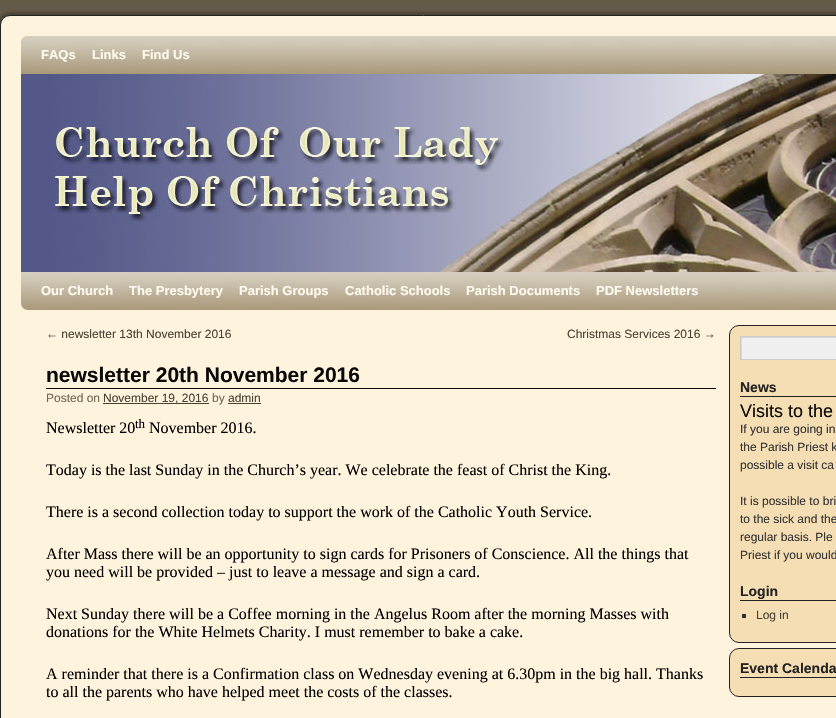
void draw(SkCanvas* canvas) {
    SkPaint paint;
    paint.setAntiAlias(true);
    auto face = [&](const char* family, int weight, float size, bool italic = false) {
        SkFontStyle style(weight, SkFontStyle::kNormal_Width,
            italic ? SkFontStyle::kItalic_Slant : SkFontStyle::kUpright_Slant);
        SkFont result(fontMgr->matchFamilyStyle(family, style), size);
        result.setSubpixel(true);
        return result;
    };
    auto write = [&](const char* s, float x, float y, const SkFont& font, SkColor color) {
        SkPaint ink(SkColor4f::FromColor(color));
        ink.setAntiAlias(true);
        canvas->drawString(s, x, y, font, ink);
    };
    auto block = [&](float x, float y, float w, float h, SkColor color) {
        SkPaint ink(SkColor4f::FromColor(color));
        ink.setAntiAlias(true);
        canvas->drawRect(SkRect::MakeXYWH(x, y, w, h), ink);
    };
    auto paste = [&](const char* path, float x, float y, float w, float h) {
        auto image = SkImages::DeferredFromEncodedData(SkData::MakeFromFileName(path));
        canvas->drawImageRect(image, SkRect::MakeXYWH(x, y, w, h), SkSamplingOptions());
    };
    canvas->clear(SkColorSetRGB(199, 180, 145));
    paste("pic1.png", 0, 0, 836, 25);
    paint.setColor(SkColorSetARGB(64, 0, 0, 0));
    paint.setMaskFilter(SkMaskFilter::MakeBlur(kNormal_SkBlurStyle, 1.5f));
    canvas->drawRoundRect(SkRect::MakeXYWH(-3, 12, 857, 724), 13, 13, paint);
    paint.setMaskFilter(nullptr);
    paint.setColor(SkColorSetRGB(254, 243, 221));
    canvas->drawRoundRect(SkRect::MakeXYWH(0.5f, 15.5f, 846, 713), 9.5f, 9.5f, paint);
    paint.setStyle(SkPaint::kStroke_Style);
    paint.setStrokeWidth(1);
    paint.setColor(SkColorSetRGB(34, 34, 34));
    canvas->drawRoundRect(SkRect::MakeXYWH(0.5f, 15.5f, 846, 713), 9.5f, 9.5f, paint);
    paint.setStyle(SkPaint::kFill_Style);
    paint.setColor(SkColorSetRGB(171, 155, 125));
    canvas->drawPath(SkPathBuilder().moveTo(28, 36).lineTo(836, 36).cubicTo(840, 36, 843, 39, 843, 43).lineTo(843, 74).lineTo(21, 74).lineTo(21, 43).cubicTo(21, 39, 24, 36, 28, 36).close().detach(), paint);
    paste("pic2.png", 21, 36, 815, 36);
    auto kFont1 = face("Liberation Sans", 700, 13);
    write("FAQs", 41, 59, kFont1, SkColorSetRGB(255, 250, 239));
    write("Links", 92, 59, kFont1, SkColorSetRGB(255, 250, 239));
    write("Find Us", 142, 59, kFont1, SkColorSetRGB(255, 250, 239));
    paste("pic3.png", 21, 74, 815, 198);
    canvas->drawPath(SkPathBuilder().moveTo(21, 272).lineTo(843, 272).lineTo(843, 303).cubicTo(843, 307, 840, 310, 836, 310).lineTo(28, 310).cubicTo(24, 310, 21, 307, 21, 303).close().detach(), paint);
    paste("pic4.png", 21, 272, 815, 36);
    write("Our Church", 41, 295, kFont1, SkColorSetRGB(255, 250, 239));
    write("The Presbytery", 129, 295, kFont1, SkColorSetRGB(255, 250, 239));
    write("Parish Groups", 239, 295, kFont1, SkColorSetRGB(255, 250, 239));
    write("Catholic Schools", 345, 295, kFont1, SkColorSetRGB(255, 250, 239));
    write("Parish Documents", 466, 295, kFont1, SkColorSetRGB(255, 250, 239));
    write("PDF Newsletters", 596, 295, kFont1, SkColorSetRGB(255, 250, 239));
    auto kFont2 = face("Liberation Sans", 400, 12);
    write("← newsletter 13th November 2016", 46, 338, kFont2, SkColorSetRGB(71, 65, 52));
    write("Christmas Services 2016 →", 567, 338, kFont2, SkColorSetRGB(71, 65, 52));
    block(46, 388, 670, 1, SkColorSetRGB(10, 10, 10));
    auto kFont3 = face("Liberation Sans", 700, 21);
    write("newsletter 20th November 2016", 46, 382, kFont3, SkColorSetRGB(10, 10, 10));
    write("Posted on", 46, 402, kFont2, SkColorSetRGB(112, 103, 82));
    block(103, 403, 106, 1, SkColorSetRGB(71, 65, 52));
    write("November 19, 2016", 103, 402, kFont2, SkColorSetRGB(71, 65, 52));
    write("by", 212, 402, kFont2, SkColorSetRGB(112, 103, 82));
    write("admin", 228, 402, kFont2, SkColorSetRGB(71, 65, 52));
    block(228, 403, 33, 1, SkColorSetRGB(71, 65, 52));
    auto kFont4 = face("Liberation Serif", 400, 16);
    write("Newsletter 20", 46, 433, kFont4, SK_ColorBLACK);
    auto kFont5 = face("Liberation Serif", 400, 13);
    write("th", 135, 428, kFont5, SK_ColorBLACK);
    write("November 2016.", 149, 433, kFont4, SK_ColorBLACK);
    write("Today is the last Sunday in the Church’s year. We celebrate the feast of Christ the King.", 46, 475, kFont4, SK_ColorBLACK);
    write("There is a second collection today to support the work of the Catholic Youth Service.", 46, 517, kFont4, SK_ColorBLACK);
    write("After Mass there will be an opportunity to sign cards for Prisoners of Conscience. All the things that", 46, 559, kFont4, SK_ColorBLACK);
    write("you need will be provided – just to leave a message and sign a card.", 46, 577, kFont4, SK_ColorBLACK);
    write("Next Sunday there will be a Coffee morning in the Angelus Room after the morning Masses with", 46, 619, kFont4, SK_ColorBLACK);
    write("donations for the White Helmets Charity. I must remember to bake a cake.", 46, 637, kFont4, SK_ColorBLACK);
    write("A reminder that there is a Confirmation class on Wednesday evening at 6.30pm in the big hall. Thanks", 46, 679, kFont4, SK_ColorBLACK);
    write("to all the parents who have helped meet the costs of the classes.", 46, 697, kFont4, SK_ColorBLACK);
    paint.setColor(SkColorSetRGB(245, 222, 179));
    canvas->drawRoundRect(SkRect::MakeXYWH(729.5f, 325.5f, 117, 317), 9.5f, 9.5f, paint);
    paint.setStyle(SkPaint::kStroke_Style);
    paint.setColor(SkColorSetRGB(34, 34, 34));
    canvas->drawRoundRect(SkRect::MakeXYWH(729.5f, 325.5f, 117, 317), 9.5f, 9.5f, paint);
    block(742, 338, 94, 21, SkColorSetRGB(240, 240, 240));
    canvas->save();
    canvas->clipRect(SkRect::MakeXYWH(741, 337, 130, 22));
    paint.setStyle(SkPaint::kFill_Style);
    paint.setColor(SkColorSetRGB(216, 216, 216));
    canvas->drawPath(SkPathBuilder(SkPathFillType::kEvenOdd).moveTo(739, 326).lineTo(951, 326).cubicTo(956, 326, 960, 330, 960, 335).lineTo(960, 458).lineTo(730, 458).lineTo(730, 335).cubicTo(730, 330, 734, 326, 739, 326).close().moveTo(742, 338).lineTo(742, 360).lineTo(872, 360).lineTo(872, 338).close().detach(), paint);
    canvas->restore();
    paint.setStyle(SkPaint::kStroke_Style);
    paint.setColor(SkColorSetRGB(204, 204, 204));
    canvas->drawRect(SkRect::MakeXYWH(740.5f, 336.5f, 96, 23), paint);
    block(740, 396, 96, 1, SkColorSetRGB(34, 34, 34));
    auto kFont6 = face("Liberation Sans", 700, 14);
    write("News", 740, 392, kFont6, SkColorSetRGB(34, 34, 34));
    auto kFont7 = face("Liberation Sans", 400, 18);
    write("Visits to the", 740, 417, kFont7, SkColorSetRGB(10, 10, 10));
    write("If you are going in", 740, 433, kFont2, SkColorSetRGB(51, 51, 51));
    write("the Parish Priest k", 740, 451, kFont2, SkColorSetRGB(51, 51, 51));
    write("possible a visit ca", 740, 469, kFont2, SkColorSetRGB(51, 51, 51));
    write("It is possible to bri", 740, 505, kFont2, SkColorSetRGB(51, 51, 51));
    write("to the sick and the", 740, 523, kFont2, SkColorSetRGB(51, 51, 51));
    write("regular basis. Ple", 740, 541, kFont2, SkColorSetRGB(51, 51, 51));
    write("Priest if you would", 740, 559, kFont2, SkColorSetRGB(51, 51, 51));
    block(740, 600, 96, 1, SkColorSetRGB(34, 34, 34));
    write("Login", 740, 596, kFont6, SkColorSetRGB(34, 34, 34));
    block(742, 614, 4, 4, SkColorSetRGB(51, 51, 51));
    write("Log in", 756, 619, kFont2, SkColorSetRGB(71, 65, 52));
    paint.setStyle(SkPaint::kFill_Style);
    paint.setColor(SkColorSetRGB(245, 222, 179));
    canvas->drawRoundRect(SkRect::MakeXYWH(729.5f, 648.5f, 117, 48), 9.5f, 9.5f, paint);
    paint.setStyle(SkPaint::kStroke_Style);
    paint.setColor(SkColorSetRGB(34, 34, 34));
    canvas->drawRoundRect(SkRect::MakeXYWH(729.5f, 648.5f, 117, 48), 9.5f, 9.5f, paint);
    block(740, 677, 96, 1, SkColorSetRGB(34, 34, 34));
    write("Event Calenda", 740, 673, kFont6, SkColorSetRGB(34, 34, 34));
}
